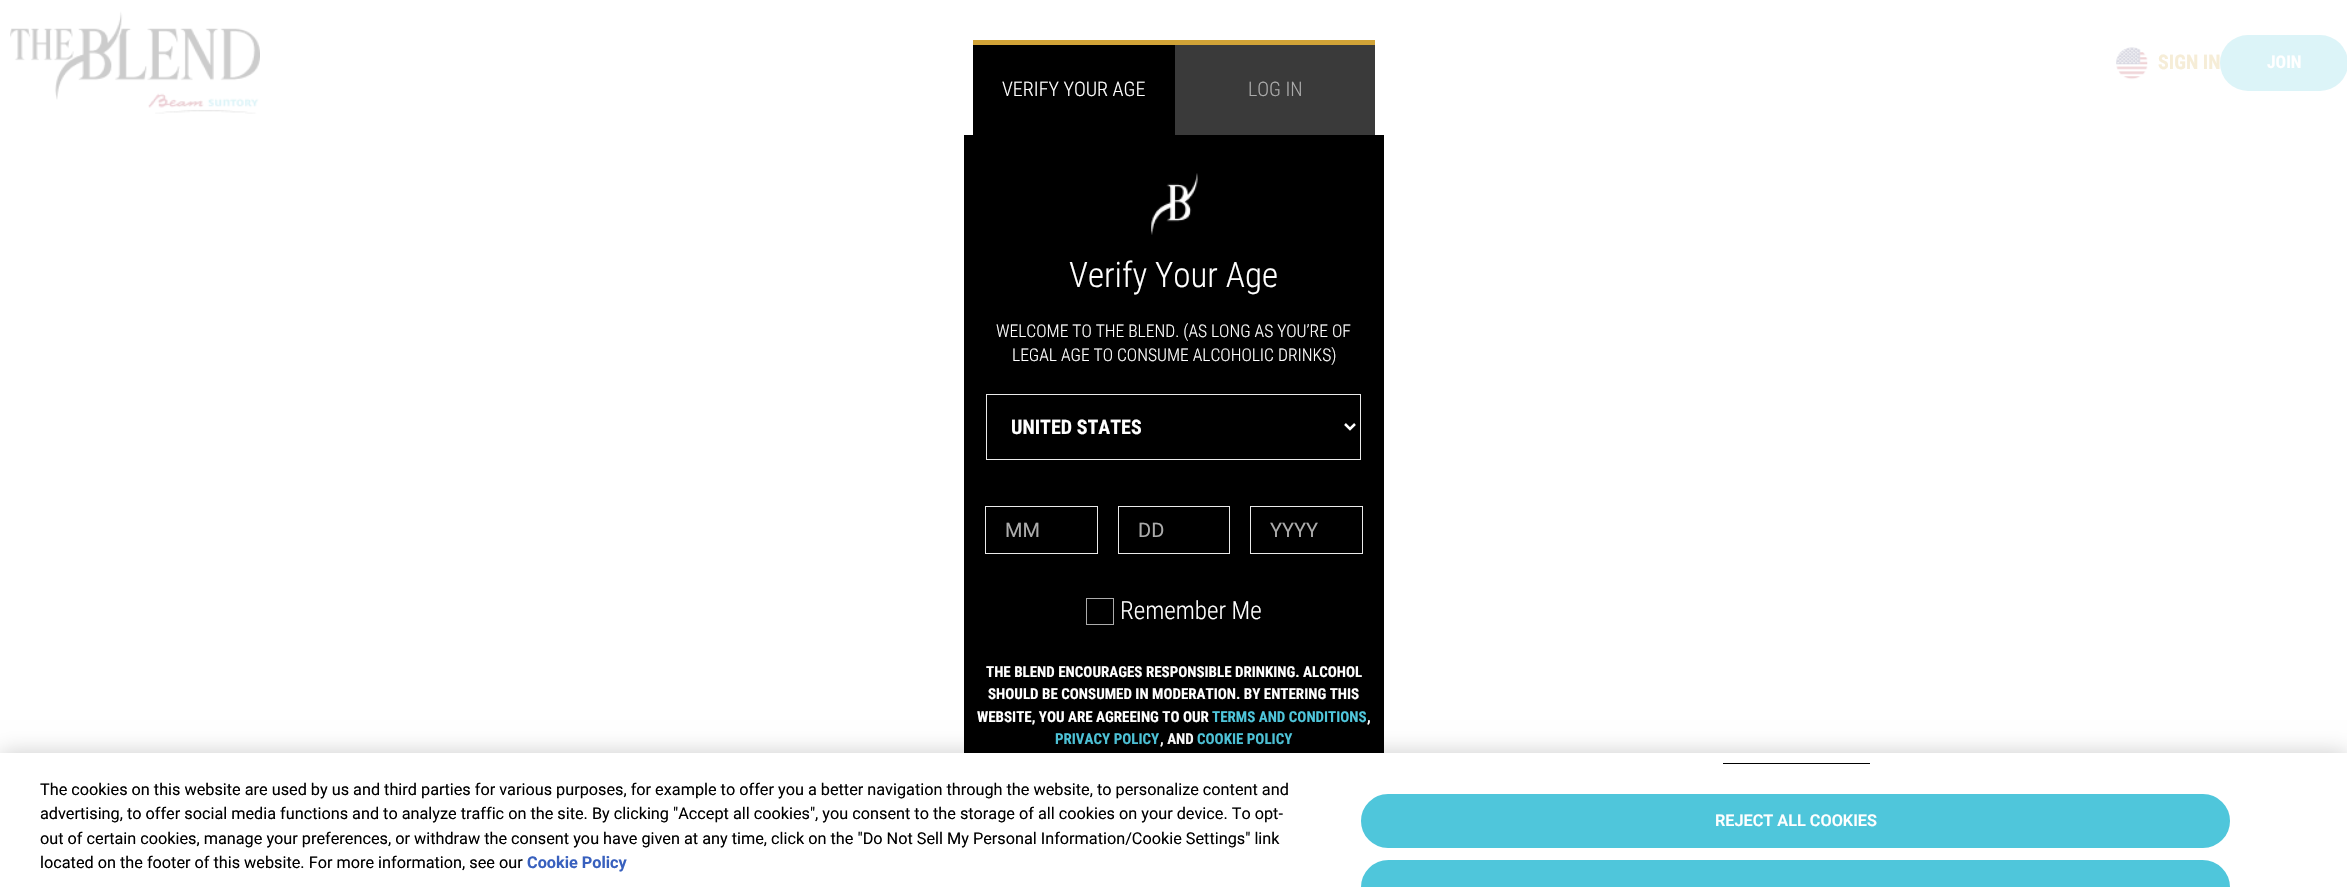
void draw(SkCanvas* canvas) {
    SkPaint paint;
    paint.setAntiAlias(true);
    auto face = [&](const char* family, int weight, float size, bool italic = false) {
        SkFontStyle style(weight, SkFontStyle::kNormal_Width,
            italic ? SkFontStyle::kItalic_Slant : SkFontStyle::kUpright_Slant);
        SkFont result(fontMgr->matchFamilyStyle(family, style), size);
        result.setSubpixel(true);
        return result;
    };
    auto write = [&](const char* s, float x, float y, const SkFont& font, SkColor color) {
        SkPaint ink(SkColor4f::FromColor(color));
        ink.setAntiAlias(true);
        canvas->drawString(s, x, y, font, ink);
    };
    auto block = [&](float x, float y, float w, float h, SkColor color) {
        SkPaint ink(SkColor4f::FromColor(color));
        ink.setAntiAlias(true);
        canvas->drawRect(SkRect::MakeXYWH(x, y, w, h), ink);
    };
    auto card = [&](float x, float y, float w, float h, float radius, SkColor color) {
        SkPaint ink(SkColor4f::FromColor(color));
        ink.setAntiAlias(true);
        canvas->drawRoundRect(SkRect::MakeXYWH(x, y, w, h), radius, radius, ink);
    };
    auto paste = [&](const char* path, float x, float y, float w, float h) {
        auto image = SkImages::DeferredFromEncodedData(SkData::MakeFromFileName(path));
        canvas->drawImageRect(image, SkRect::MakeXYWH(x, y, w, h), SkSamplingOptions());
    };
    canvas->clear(SK_ColorWHITE);
    paste("pic1.png", 10, 11, 250, 103);
    paste("pic2.png", 2116, 47, 32, 33);
    auto kFont1 = face("Roboto Condensed", 700, 20);
    write("SIGN IN", 2158, 69, kFont1, SkColorSetRGB(246, 237, 215));
    card(2220, 35, 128, 56, 28, SkColorSetRGB(220, 244, 248));
    auto kFont2 = face("Roboto Condensed", 700, 17.5f);
    write("JOIN", 2267, 68, kFont2, SK_ColorWHITE);
    block(973, 40, 402, 5, SkColorSetRGB(209, 163, 55));
    block(973, 45, 202, 90, SK_ColorBLACK);
    auto kFont3 = face("Roboto Condensed", 300, 20);
    write("VERIFY YOUR AGE", 1002, 96, kFont3, SK_ColorWHITE);
    block(1175, 45, 200, 90, SkColorSetRGB(58, 58, 58));
    write("LOG IN", 1248, 96, kFont3, SkColorSetRGB(171, 171, 171));
    block(964, 135, 420, 618, SK_ColorBLACK);
    paste("pic3.png", 1151, 173, 47, 62);
    auto kFont4 = face("Roboto Condensed", 300, 35);
    write("Verify Your Age", 1069, 287, kFont4, SK_ColorWHITE);
    auto kFont5 = face("Roboto Condensed", 300, 17.5f);
    write("WELCOME TO THE BLEND. (AS LONG AS YOU’RE OF", 996, 337, kFont5, SK_ColorWHITE);
    write("LEGAL AGE TO CONSUME ALCOHOLIC DRINKS)", 1012, 361, kFont5, SK_ColorWHITE);
    paint.setStyle(SkPaint::kStroke_Style);
    paint.setStrokeWidth(1);
    paint.setColor(SkColorSetRGB(234, 234, 234));
    canvas->drawRect(SkRect::MakeXYWH(986.5f, 394.5f, 374, 65), paint);
    paint.setStrokeWidth(2.5f);
    paint.setColor(SK_ColorWHITE);
    canvas->drawPath(SkPathBuilder().moveTo(1345, 424).lineTo(1350, 429).lineTo(1355, 424).detach(), paint);
    write("UNITED STATES", 1011, 434, kFont1, SK_ColorWHITE);
    paint.setStrokeWidth(1);
    paint.setColor(SkColorSetRGB(234, 234, 234));
    canvas->drawRect(SkRect::MakeXYWH(985.5f, 506.5f, 112, 47), paint);
    auto kFont6 = face("Roboto", 400, 20);
    write("MM", 1005, 537, kFont6, SkColorSetRGB(171, 171, 171));
    canvas->drawRect(SkRect::MakeXYWH(1118.5f, 506.5f, 111, 47), paint);
    write("DD", 1138, 537, kFont6, SkColorSetRGB(171, 171, 171));
    canvas->drawRect(SkRect::MakeXYWH(1250.5f, 506.5f, 112, 47), paint);
    write("YYYY", 1270, 537, kFont6, SkColorSetRGB(171, 171, 171));
    paint.setColor(SkColorSetRGB(171, 171, 171));
    canvas->drawRect(SkRect::MakeXYWH(1086.5f, 598.5f, 27, 26), paint);
    auto kFont7 = face("Roboto Condensed", 300, 25);
    write("Remember Me", 1120, 619, kFont7, SK_ColorWHITE);
    auto kFont8 = face("Roboto Condensed", 700, 15);
    write("THE BLEND ENCOURAGES RESPONSIBLE DRINKING. ALCOHOL", 986, 677, kFont8, SK_ColorWHITE);
    write("SHOULD BE CONSUMED IN MODERATION. BY ENTERING THIS", 988, 699, kFont8, SK_ColorWHITE);
    write("WEBSITE, YOU ARE AGREEING TO OUR", 977, 722, kFont8, SK_ColorWHITE);
    write("TERMS AND CONDITIONS", 1212, 722, kFont8, SkColorSetRGB(79, 198, 219));
    write(",", 1367, 722, kFont8, SK_ColorWHITE);
    write("PRIVACY POLICY", 1055, 744, kFont8, SkColorSetRGB(79, 198, 219));
    write(", AND", 1160, 744, kFont8, SK_ColorWHITE);
    write("COOKIE POLICY", 1197, 744, kFont8, SkColorSetRGB(79, 198, 219));
    paint.setStyle(SkPaint::kFill_Style);
    paint.setColor(SkColorSetARGB(51, 0, 0, 0));
    paint.setMaskFilter(SkMaskFilter::MakeBlur(kNormal_SkBlurStyle, 11));
    canvas->drawRect(SkRect::MakeXYWH(0, 753, 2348, 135), paint);
    paint.setMaskFilter(nullptr);
    block(0, 753, 2347, 134, SK_ColorWHITE);
    auto kFont9 = face("Roboto", 400, 16.25f);
    write("The cookies on this website are used by us and third parties for various purposes, for example to offer you a better navigation through the website, to personalize content and", 40, 795, kFont9, SK_ColorBLACK);
    write("advertising, to offer social media functions and to analyze traffic on the site. By clicking \"Accept all cookies\", you consent to the storage of all cookies on your device. To opt-", 40, 819, kFont9, SK_ColorBLACK);
    write("out of certain cookies, manage your preferences, or withdraw the consent you have given at any time, click on the \"Do Not Sell My Personal Information/Cookie Settings\" link", 40, 844, kFont9, SK_ColorBLACK);
    write("located on the footer of this website. For more information, see our", 40, 868, kFont9, SK_ColorBLACK);
    auto kFont10 = face("Roboto", 700, 16.25f);
    write("Cookie Policy", 527, 868, kFont10, SkColorSetRGB(56, 96, 190));
    block(1723, 763, 147, 1, SK_ColorBLACK);
    paint.setColor(SkColorSetRGB(79, 198, 219));
    canvas->drawRoundRect(SkRect::MakeXYWH(1362.5f, 795.5f, 866, 51), 25.5f, 25.5f, paint);
    paint.setStyle(SkPaint::kStroke_Style);
    paint.setStrokeWidth(3);
    canvas->drawRoundRect(SkRect::MakeXYWH(1362.5f, 795.5f, 866, 51), 25.5f, 25.5f, paint);
    auto kFont11 = face("Roboto", 600, 16.25f);
    write("REJECT ALL COOKIES", 1715, 826, kFont11, SK_ColorWHITE);
    paint.setStyle(SkPaint::kFill_Style);
    canvas->drawRoundRect(SkRect::MakeXYWH(1362.5f, 861.5f, 866, 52), 26, 26, paint);
    paint.setStyle(SkPaint::kStroke_Style);
    canvas->drawRoundRect(SkRect::MakeXYWH(1362.5f, 861.5f, 866, 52), 26, 26, paint);
}
